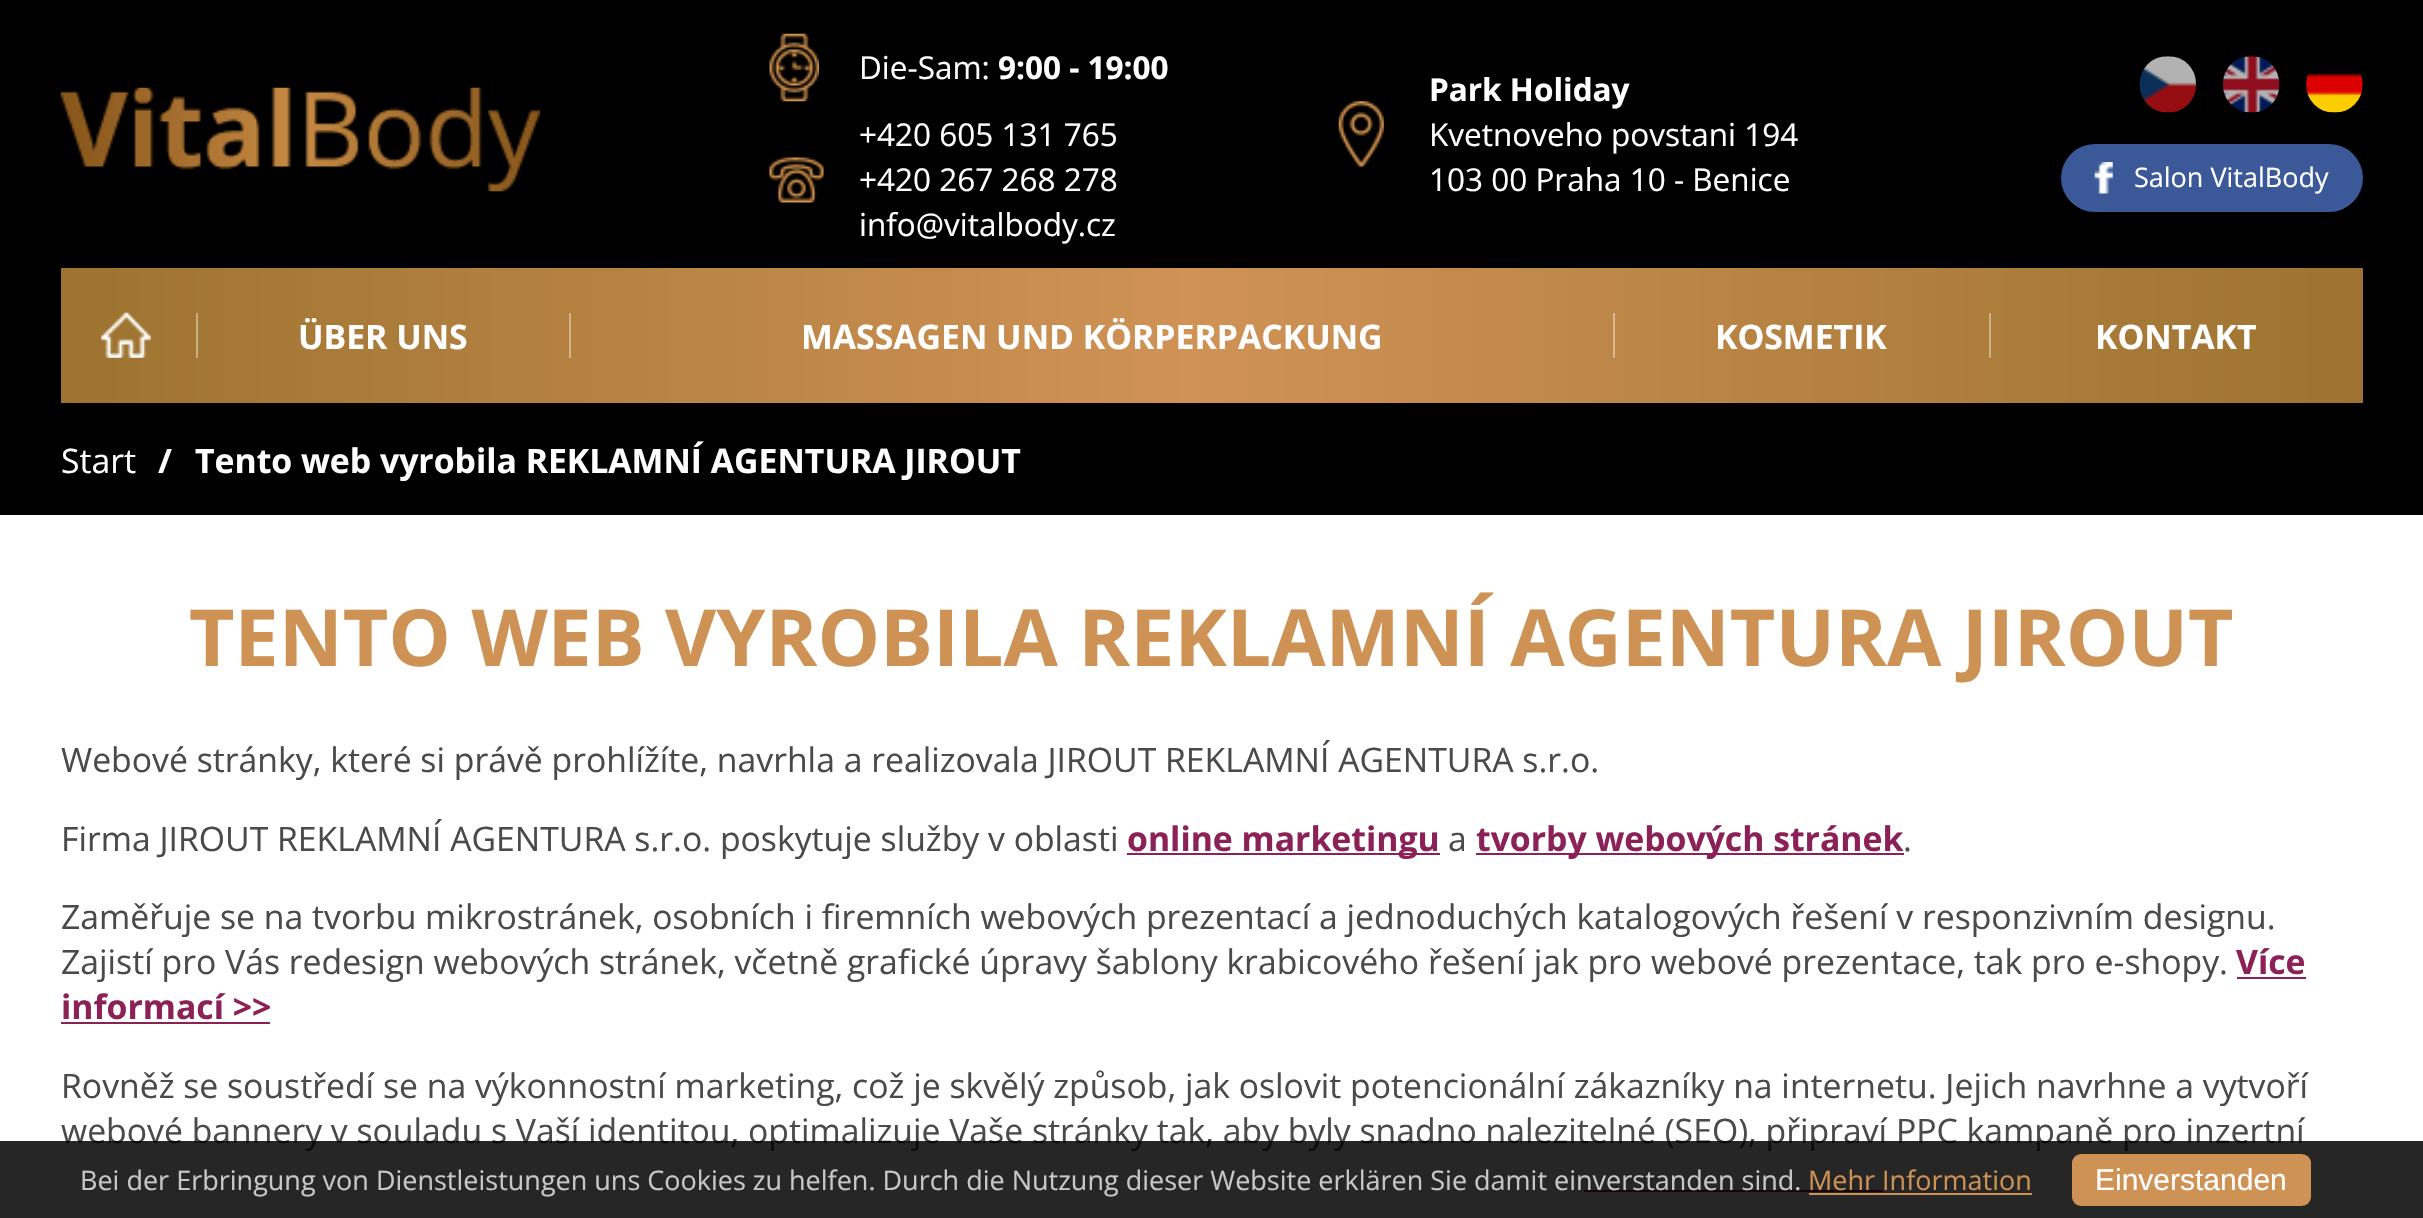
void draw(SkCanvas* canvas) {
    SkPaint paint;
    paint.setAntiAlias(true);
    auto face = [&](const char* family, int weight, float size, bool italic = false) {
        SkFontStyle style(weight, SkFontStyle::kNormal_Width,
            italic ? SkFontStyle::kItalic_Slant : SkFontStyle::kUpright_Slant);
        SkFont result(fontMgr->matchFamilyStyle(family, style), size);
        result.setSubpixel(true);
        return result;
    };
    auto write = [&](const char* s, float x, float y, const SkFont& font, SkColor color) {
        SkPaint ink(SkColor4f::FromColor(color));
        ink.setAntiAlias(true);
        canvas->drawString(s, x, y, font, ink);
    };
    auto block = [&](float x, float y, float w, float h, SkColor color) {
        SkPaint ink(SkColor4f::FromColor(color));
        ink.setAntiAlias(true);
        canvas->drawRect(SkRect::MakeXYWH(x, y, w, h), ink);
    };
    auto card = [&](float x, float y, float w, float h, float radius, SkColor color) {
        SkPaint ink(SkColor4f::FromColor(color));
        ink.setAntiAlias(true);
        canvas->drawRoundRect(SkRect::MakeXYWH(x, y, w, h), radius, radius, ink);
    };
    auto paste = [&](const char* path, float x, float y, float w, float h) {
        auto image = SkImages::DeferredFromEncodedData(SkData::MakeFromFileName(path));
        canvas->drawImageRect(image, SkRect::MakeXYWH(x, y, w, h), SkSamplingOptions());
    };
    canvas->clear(SK_ColorWHITE);
    block(0, 0, 2423, 403, SK_ColorBLACK);
    paste("pic1.png", 60, 87, 480, 105);
    paste("pic2.png", 769, 33, 50, 69);
    auto kFont1 = face("Open Sans", 400, 31.5f);
    write("Die-Sam:", 859, 79, kFont1, SK_ColorWHITE);
    auto kFont2 = face("Open Sans", 700, 31.5f);
    write("9:00 - 19:00", 998, 79, kFont2, SK_ColorWHITE);
    write("Park Holiday", 1429, 101, kFont2, SK_ColorWHITE);
    paste("pic3.png", 1338, 101, 46, 67);
    write("Kvetnoveho povstani 194", 1429, 146, kFont1, SK_ColorWHITE);
    write("103 00 Praha 10 - Benice", 1429, 191, kFont1, SK_ColorWHITE);
    paste("pic4.png", 2139, 56, 57, 57);
    paste("pic5.png", 2223, 56, 57, 57);
    paste("pic6.png", 2306, 73, 57, 40);
    write("+420 605 131 765", 859, 146, kFont1, SK_ColorWHITE);
    paste("pic7.png", 769, 157, 55, 46);
    write("+420 267 268 278", 859, 191, kFont1, SK_ColorWHITE);
    write("info@vitalbody.cz", 859, 236, kFont1, SK_ColorWHITE);
    card(2061, 144, 302, 68, 34, SkColorSetRGB(59, 89, 152));
    paste("pic8.png", 2094, 162, 19, 32);
    auto kFont3 = face("Open Sans", 400, 27);
    write("Salon VitalBody", 2134, 187, kFont3, SK_ColorWHITE);
    {
        const SkColor colors[] = {SkColorSetRGB(157, 115, 47), SkColorSetRGB(208, 146, 85), SkColorSetRGB(157, 115, 47)};
        const float stops[] = {0, 0.49f, 1};
        const SkPoint ends[] = {{61, 335}, {2363, 335}};
        paint.setShader(SkGradientShader::MakeLinear(ends, colors, stops, 3, SkTileMode::kClamp));
        paint.setAlpha(255);
    }
    canvas->drawRect(SkRect::MakeXYWH(61, 268, 2302, 135), paint);
    paste("pic9.png", 101, 312, 50, 46);
    block(196, 313, 2, 45, SkColorSetRGB(200, 173, 133));
    auto kFont4 = face("Open Sans", 700, 33.75f);
    write("ÜBER UNS", 298, 349, kFont4, SK_ColorWHITE);
    block(569, 313, 2, 45, SkColorSetRGB(210, 179, 140));
    write("MASSAGEN UND KÖRPERPACKUNG", 801, 349, kFont4, SK_ColorWHITE);
    block(1613, 313, 2, 45, SkColorSetRGB(216, 183, 145));
    write("KOSMETIK", 1715, 349, kFont4, SK_ColorWHITE);
    block(1989, 313, 2, 45, SkColorSetRGB(206, 177, 137));
    write("KONTAKT", 2095, 349, kFont4, SK_ColorWHITE);
    block(0, 403, 2423, 112, SK_ColorBLACK);
    auto kFont5 = face("Open Sans", 400, 33.75f);
    write("Start", 61, 473, kFont5, SK_ColorWHITE);
    write("/", 158, 473, kFont4, SK_ColorWHITE);
    write("Tento web vyrobila REKLAMNÍ AGENTURA JIROUT", 195, 473, kFont4, SK_ColorWHITE);
    auto kFont6 = face("Open Sans", 700, 78.75f);
    write("TENTO WEB VYROBILA REKLAMNÍ AGENTURA JIROUT", 189, 666, kFont6, SkColorSetRGB(206, 146, 84));
    write("Webové stránky, které si právě prohlížíte, navrhla a realizovala JIROUT REKLAMNÍ AGENTURA s.r.o.", 61, 772, kFont5, SkColorSetRGB(74, 74, 74));
    write("Firma JIROUT REKLAMNÍ AGENTURA s.r.o. poskytuje služby v oblasti", 61, 851, kFont5, SkColorSetRGB(74, 74, 74));
    block(1127, 853, 313, 2, SkColorSetRGB(140, 33, 87));
    write("online marketingu", 1127, 851, kFont4, SkColorSetRGB(140, 33, 87));
    write("a", 1448, 851, kFont5, SkColorSetRGB(74, 74, 74));
    block(1476, 853, 428, 2, SkColorSetRGB(140, 33, 87));
    write("tvorby webových stránek", 1476, 851, kFont4, SkColorSetRGB(140, 33, 87));
    write(".", 1903, 851, kFont5, SkColorSetRGB(74, 74, 74));
    write("Zaměřuje se na tvorbu mikrostránek, osobních i firemních webových prezentací a jednoduchých katalogových řešení v responzivním designu.", 61, 929, kFont5, SkColorSetRGB(74, 74, 74));
    write("Zajistí pro Vás redesign webových stránek, včetně grafické úpravy šablony krabicového řešení jak pro webové prezentace, tak pro e-shopy.", 61, 974, kFont5, SkColorSetRGB(74, 74, 74));
    write("Více", 2236, 974, kFont4, SkColorSetRGB(140, 33, 87));
    block(2237, 977, 69, 2, SkColorSetRGB(140, 33, 87));
    write("informací >>", 61, 1019, kFont4, SkColorSetRGB(140, 33, 87));
    block(61, 1022, 209, 2, SkColorSetRGB(140, 33, 87));
    write("Rovněž se soustředí se na výkonnostní marketing, což je skvělý způsob, jak oslovit potencionální zákazníky na internetu. Jejich navrhne a vytvoří", 61, 1098, kFont5, SkColorSetRGB(74, 74, 74));
    write("webové bannery v souladu s Vaší identitou, optimalizuje Vaše stránky tak, aby byly snadno nalezitelné (SEO), připraví PPC kampaně pro inzertní", 61, 1143, kFont5, SkColorSetRGB(74, 74, 74));
    block(1584, 1190, 299, 2, SkColorSetRGB(140, 33, 87));
    block(0, 1141, 2423, 77, SkColorSetARGB(217, 0, 0, 0));
    write("Bei der Erbringung von Dienstleistungen uns Cookies zu helfen. Durch die Nutzung dieser Website erklären Sie damit einverstanden sind.", 80, 1190, kFont3, SkColorSetRGB(199, 199, 199));
    write("Mehr Information", 1808, 1190, kFont3, SkColorSetRGB(206, 146, 84));
    block(1809, 1193, 223, 2, SkColorSetRGB(206, 146, 84));
    card(2072, 1154, 239, 52, 9, SkColorSetRGB(206, 146, 84));
    auto kFont7 = face("Liberation Sans", 400, 30);
    write("Einverstanden", 2095, 1190, kFont7, SK_ColorWHITE);
}
